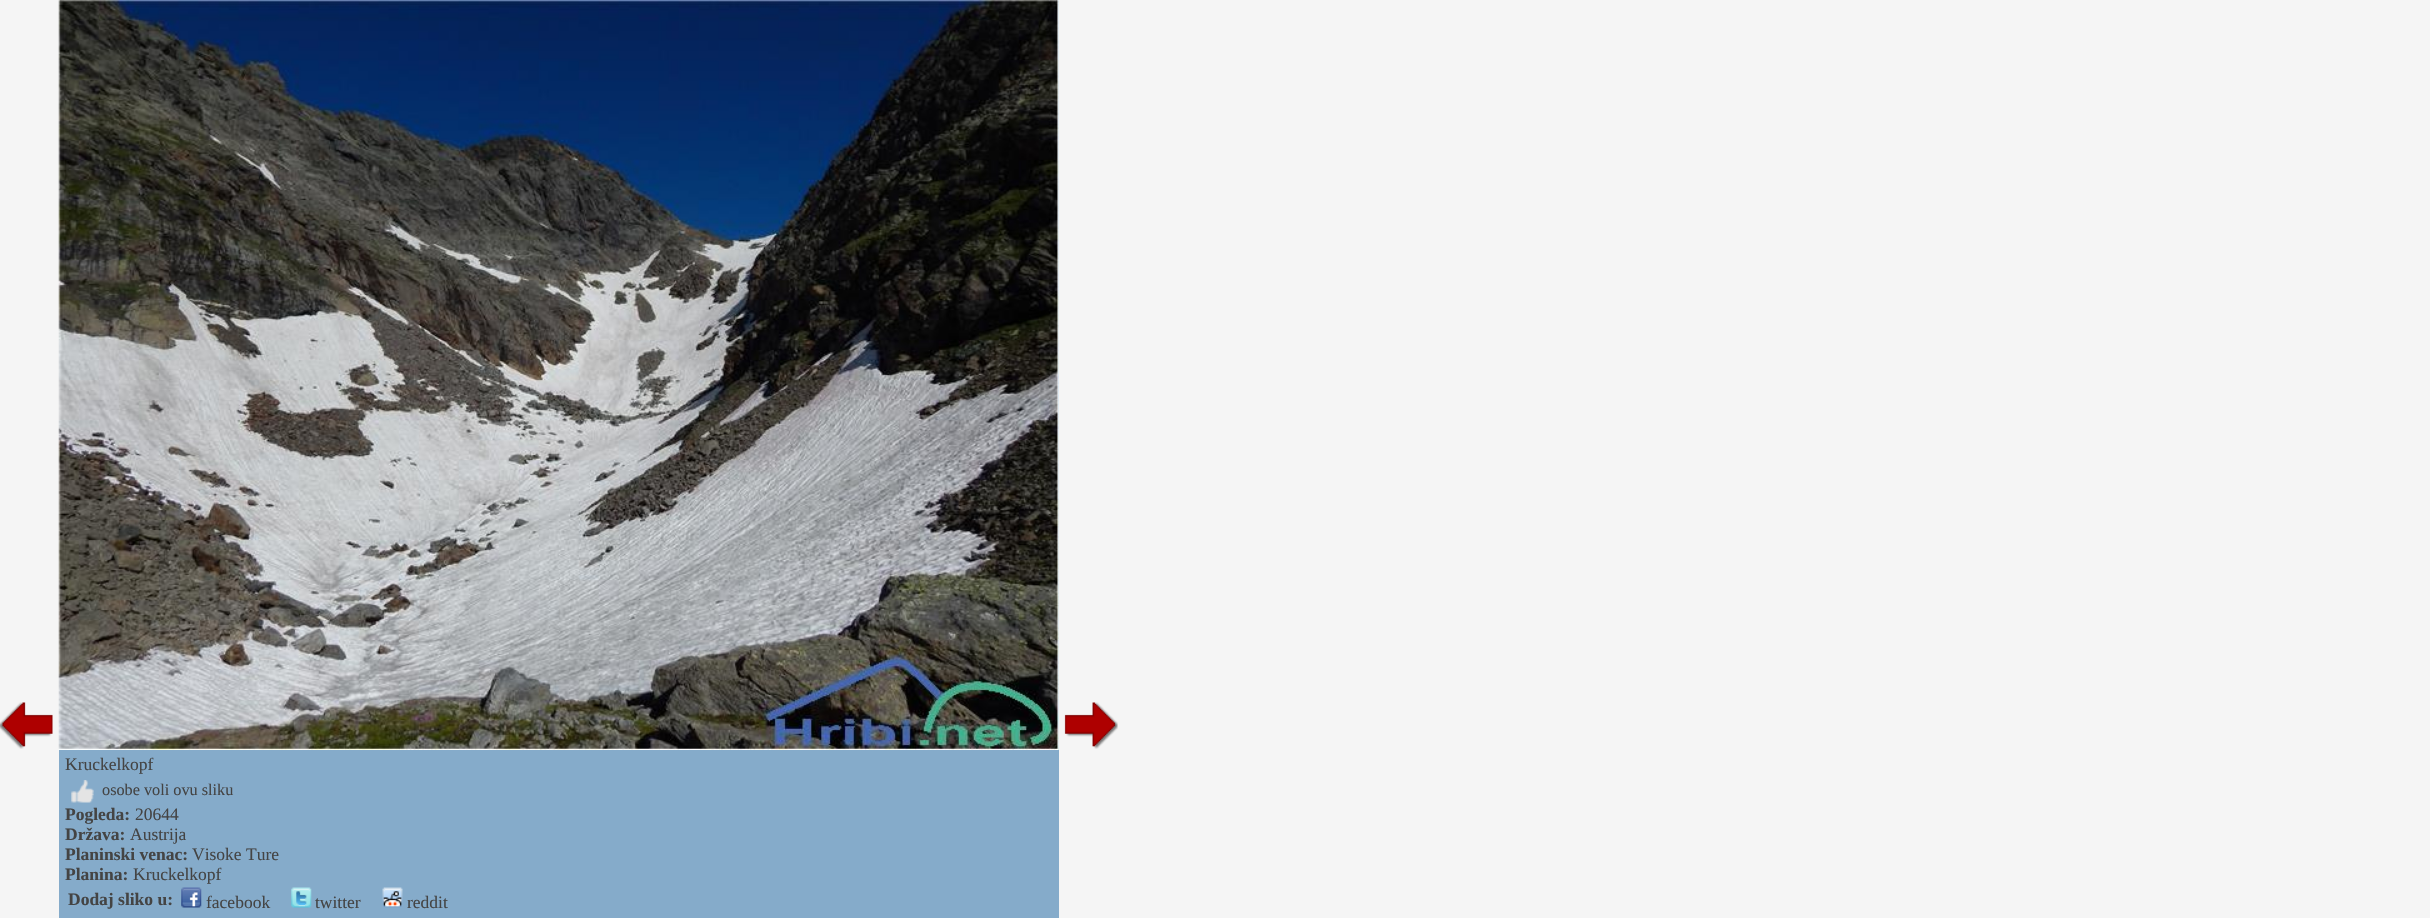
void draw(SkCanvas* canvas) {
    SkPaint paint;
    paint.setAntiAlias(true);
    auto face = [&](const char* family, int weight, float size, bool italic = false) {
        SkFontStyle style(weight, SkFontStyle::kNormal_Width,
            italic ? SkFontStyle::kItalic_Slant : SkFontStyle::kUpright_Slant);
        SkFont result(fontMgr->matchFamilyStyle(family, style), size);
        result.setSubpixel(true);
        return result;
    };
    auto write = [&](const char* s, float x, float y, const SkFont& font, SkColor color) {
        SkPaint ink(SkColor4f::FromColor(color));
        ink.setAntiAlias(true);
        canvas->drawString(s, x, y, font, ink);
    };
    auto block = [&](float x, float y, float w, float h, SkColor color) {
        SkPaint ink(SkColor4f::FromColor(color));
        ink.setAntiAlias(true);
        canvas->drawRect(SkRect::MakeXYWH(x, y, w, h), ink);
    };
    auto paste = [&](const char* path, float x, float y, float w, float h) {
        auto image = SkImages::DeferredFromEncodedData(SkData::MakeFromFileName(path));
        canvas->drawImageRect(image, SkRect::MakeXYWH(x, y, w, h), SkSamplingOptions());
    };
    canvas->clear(SkColorSetRGB(245, 245, 245));
    paste("pic1.png", 0, 702, 53, 47);
    paste("pic2.png", 1064, 702, 54, 47);
    block(59, 0, 1000, 918, SkColorSetRGB(133, 171, 202));
    paste("pic3.png", 58, 0, 1001, 750);
    auto kFont1 = face("Liberation Serif", 400, 17.5f);
    write("Kruckelkopf", 65, 770, kFont1, SkColorSetRGB(68, 68, 68));
    paste("pic4.png", 71, 780, 23, 23);
    auto kFont2 = face("Liberation Serif", 400, 16.25f);
    write("osobe voli ovu sliku", 102, 795, kFont2, SkColorSetRGB(68, 68, 68));
    auto kFont3 = face("Liberation Serif", 700, 17.5f);
    write("Pogleda:", 65, 820, kFont3, SkColorSetRGB(68, 68, 68));
    write("20644", 135, 820, kFont1, SkColorSetRGB(68, 68, 68));
    write("Država:", 65, 840, kFont3, SkColorSetRGB(68, 68, 68));
    write("Austrija", 130, 840, kFont1, SkColorSetRGB(68, 68, 68));
    write("Planinski venac:", 65, 860, kFont3, SkColorSetRGB(68, 68, 68));
    write("Visoke Ture", 192, 860, kFont1, SkColorSetRGB(68, 68, 68));
    write("Planina:", 65, 880, kFont3, SkColorSetRGB(68, 68, 68));
    write("Kruckelkopf", 133, 880, kFont1, SkColorSetRGB(68, 68, 68));
    write("Dodaj sliko u:", 68, 905, kFont3, SkColorSetRGB(68, 68, 68));
    paste("pic5.png", 181, 887, 21, 21);
    write("facebook", 206, 908, kFont1, SkColorSetRGB(68, 68, 68));
    paste("pic6.png", 291, 887, 21, 21);
    write("twitter", 315, 908, kFont1, SkColorSetRGB(68, 68, 68));
    paste("pic7.png", 382, 887, 21, 21);
    write("reddit", 407, 908, kFont1, SkColorSetRGB(68, 68, 68));
}
